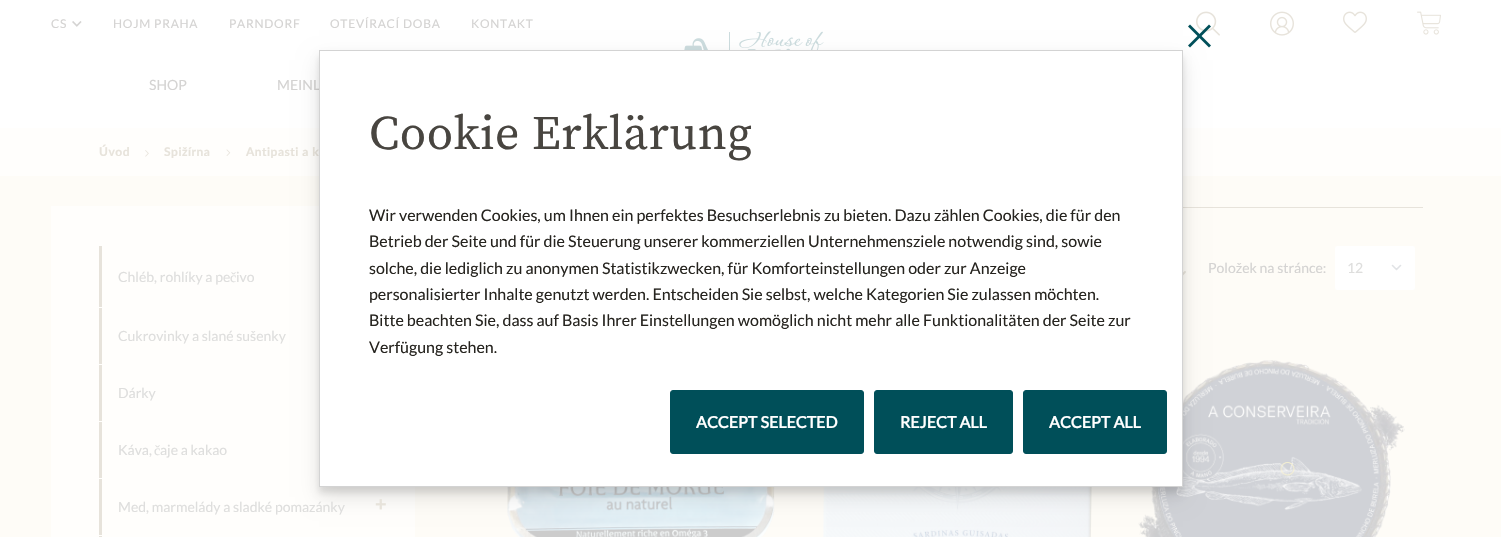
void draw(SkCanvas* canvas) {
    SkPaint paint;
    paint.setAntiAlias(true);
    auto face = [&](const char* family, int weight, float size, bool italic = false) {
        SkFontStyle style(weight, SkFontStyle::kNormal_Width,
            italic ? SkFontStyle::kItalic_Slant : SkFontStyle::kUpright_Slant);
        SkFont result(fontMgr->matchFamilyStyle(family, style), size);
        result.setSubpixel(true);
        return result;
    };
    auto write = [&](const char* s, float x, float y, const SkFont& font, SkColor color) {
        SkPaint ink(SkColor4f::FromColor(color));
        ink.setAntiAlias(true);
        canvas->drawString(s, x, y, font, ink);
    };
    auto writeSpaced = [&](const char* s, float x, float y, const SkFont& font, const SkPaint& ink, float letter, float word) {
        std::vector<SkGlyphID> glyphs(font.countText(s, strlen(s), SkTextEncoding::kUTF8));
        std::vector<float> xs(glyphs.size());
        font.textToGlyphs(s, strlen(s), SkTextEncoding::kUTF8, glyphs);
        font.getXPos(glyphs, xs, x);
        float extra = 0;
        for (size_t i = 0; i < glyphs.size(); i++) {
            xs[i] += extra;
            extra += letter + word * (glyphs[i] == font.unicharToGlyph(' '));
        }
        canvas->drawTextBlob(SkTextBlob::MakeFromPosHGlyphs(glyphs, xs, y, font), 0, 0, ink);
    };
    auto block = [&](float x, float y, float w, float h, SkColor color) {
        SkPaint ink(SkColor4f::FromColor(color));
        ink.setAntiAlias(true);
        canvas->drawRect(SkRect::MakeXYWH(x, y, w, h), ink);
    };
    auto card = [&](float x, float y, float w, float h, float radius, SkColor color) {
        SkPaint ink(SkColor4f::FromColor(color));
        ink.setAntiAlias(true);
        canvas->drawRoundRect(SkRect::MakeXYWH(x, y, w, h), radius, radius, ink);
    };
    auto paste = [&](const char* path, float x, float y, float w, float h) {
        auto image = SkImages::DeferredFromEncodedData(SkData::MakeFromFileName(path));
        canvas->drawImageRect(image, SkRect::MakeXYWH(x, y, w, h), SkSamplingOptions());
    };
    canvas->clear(SkColorSetRGB(255, 254, 252));
    block(0, 0, 1501, 128, SK_ColorWHITE);
    auto kFont1 = face("Lato", 400, 12);
    paint.setColor(SkColorSetRGB(212, 211, 210));
    writeSpaced("CS", 51, 28, kFont1, paint, 0.75f, 0);
    paste("pic1.png", 72, 21, 10, 6);
    writeSpaced("HOJM PRAHA", 113, 28, kFont1, paint, 0.75f, 0);
    writeSpaced("PARNDORF", 229, 28, kFont1, paint, 0.75f, 0);
    writeSpaced("OTEVÍRACÍ DOBA", 330, 28, kFont1, paint, 0.75f, 0);
    writeSpaced("KONTAKT", 471, 28, kFont1, paint, 0.75f, 0);
    paste("pic2.png", 1196, 11, 24, 25);
    paste("pic3.png", 1270, 11, 24, 25);
    paste("pic4.png", 1343, 11, 24, 22);
    paste("pic5.png", 1417, 11, 24, 24);
    auto kFont2 = face("Lato", 400, 14);
    write("SHOP", 149, 90, kFont2, SkColorSetRGB(212, 211, 210));
    write("MEINL", 277, 90, kFont2, SkColorSetRGB(212, 211, 210));
    paste("pic6.png", 684, 31, 140, 19);
    auto kFont3 = face("Lato", 700, 12);
    paint.setColor(SkColorSetRGB(231, 227, 219));
    writeSpaced("Úvod", 99, 156, kFont3, paint, 0.5f, 0);
    paste("pic7.png", 145, 150, 4, 7);
    writeSpaced("Spižírna", 164, 156, kFont3, paint, 0.5f, 0);
    paste("pic8.png", 226, 149, 5, 7);
    writeSpaced("Antipasti a k", 246, 156, kFont3, paint, 0.5f, 0);
    block(0, 176, 1501, 361, SkColorSetRGB(254, 252, 247));
    block(1183, 207, 240, 1, SkColorSetRGB(231, 227, 219));
    paste("pic9.png", 1183, 271, 3, 5);
    paste("pic10.png", 507, 487, 268, 50);
    paste("pic11.png", 823, 487, 269, 50);
    paste("pic12.png", 1138, 360, 267, 177);
    block(51, 206, 364, 331, SkColorSetRGB(255, 254, 252));
    paint.setColor(SkColorSetARGB(26, 0, 0, 0));
    paint.setMaskFilter(SkMaskFilter::MakeBlur(kNormal_SkBlurStyle, 3));
    canvas->drawRect(SkRect::MakeXYWH(319, 56, 864, 437), paint);
    paint.setMaskFilter(nullptr);
    paint.setMaskFilter(SkMaskFilter::MakeBlur(kNormal_SkBlurStyle, 10));
    canvas->drawRect(SkRect::MakeXYWH(319, 60, 864, 437), paint);
    paint.setMaskFilter(nullptr);
    paint.setColor(SK_ColorWHITE);
    canvas->drawRect(SkRect::MakeXYWH(319.5f, 50.5f, 863, 436), paint);
    paint.setStyle(SkPaint::kStroke_Style);
    paint.setStrokeWidth(1);
    paint.setColor(SkColorSetRGB(211, 211, 211));
    canvas->drawRect(SkRect::MakeXYWH(319.5f, 50.5f, 863, 436), paint);
    paint.setStyle(SkPaint::kFill_Style);
    paint.setColor(SkColorSetRGB(0, 79, 89));
    canvas->drawPath(SkPathBuilder().moveTo(1209, 24.5f).lineTo(1211, 26.5f).lineTo(1190, 47.5f).lineTo(1188, 45.5f).close().detach(), paint);
    canvas->drawPath(SkPathBuilder().moveTo(1188, 26.5f).lineTo(1190, 24.5f).lineTo(1211, 45.5f).lineTo(1209, 47.5f).close().detach(), paint);
    auto kFont4 = face("Source Serif Pro", 400, 48);
    paint.setColor(SkColorSetRGB(72, 69, 64));
    writeSpaced("Cookie Erklärung", 369, 149, kFont4, paint, 0.5f, 0);
    auto kFont5 = face("Lato", 400, 16);
    write("Wir verwenden Cookies, um Ihnen ein perfektes Besuchserlebnis zu bieten. Dazu zählen Cookies, die für den", 369, 221, kFont5, SkColorSetRGB(38, 36, 31));
    write("Betrieb der Seite und für die Steuerung unserer kommerziellen Unternehmensziele notwendig sind, sowie", 369, 247, kFont5, SkColorSetRGB(38, 36, 31));
    write("solche, die lediglich zu anonymen Statistikzwecken, für Komforteinstellungen oder zur Anzeige", 369, 274, kFont5, SkColorSetRGB(38, 36, 31));
    write("personalisierter Inhalte genutzt werden. Entscheiden Sie selbst, welche Kategorien Sie zulassen möchten.", 369, 300, kFont5, SkColorSetRGB(38, 36, 31));
    write("Bitte beachten Sie, dass auf Basis Ihrer Einstellungen womöglich nicht mehr alle Funktionalitäten der Seite zur", 369, 326, kFont5, SkColorSetRGB(38, 36, 31));
    write("Verfügung stehen.", 369, 353, kFont5, SkColorSetRGB(38, 36, 31));
    paint.setColor(SkColorSetRGB(0, 79, 89));
    canvas->drawRoundRect(SkRect::MakeXYWH(670.5f, 390.5f, 193, 63), 2.5f, 2.5f, paint);
    paint.setStyle(SkPaint::kStroke_Style);
    canvas->drawRoundRect(SkRect::MakeXYWH(670.5f, 390.5f, 193, 63), 2.5f, 2.5f, paint);
    auto kFont6 = face("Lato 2", 700, 16);
    write("ACCEPT SELECTED", 696, 428, kFont6, SK_ColorWHITE);
    paint.setStyle(SkPaint::kFill_Style);
    canvas->drawRoundRect(SkRect::MakeXYWH(874.5f, 390.5f, 138, 63), 2.5f, 2.5f, paint);
    paint.setStyle(SkPaint::kStroke_Style);
    canvas->drawRoundRect(SkRect::MakeXYWH(874.5f, 390.5f, 138, 63), 2.5f, 2.5f, paint);
    write("REJECT ALL", 900, 428, kFont6, SK_ColorWHITE);
    paint.setStyle(SkPaint::kFill_Style);
    canvas->drawRoundRect(SkRect::MakeXYWH(1023.5f, 390.5f, 143, 63), 2.5f, 2.5f, paint);
    paint.setStyle(SkPaint::kStroke_Style);
    canvas->drawRoundRect(SkRect::MakeXYWH(1023.5f, 390.5f, 143, 63), 2.5f, 2.5f, paint);
    write("ACCEPT ALL", 1049, 428, kFont6, SK_ColorWHITE);
    write("Položek na stránce:", 1208, 273, kFont2, SkColorSetRGB(212, 211, 210));
    card(1335, 246, 80, 44, 2, SK_ColorWHITE);
    paint.setStrokeWidth(1.6f);
    paint.setStrokeCap(SkPaint::kRound_Cap);
    paint.setStrokeJoin(SkPaint::kRound_Join);
    paint.setColor(SkColorSetRGB(225, 227, 230));
    canvas->drawPath(SkPathBuilder().moveTo(1392.5f, 265.5f).lineTo(1396.5f, 269.5f).lineTo(1400.5f, 265.5f).detach(), paint);
    write("12", 1347, 273, kFont2, SkColorSetRGB(222, 222, 221));
    block(99, 246, 3, 61, SkColorSetRGB(231, 227, 219));
    write("Chléb, rohlíky a pe", 118, 282, kFont2, SkColorSetRGB(222, 222, 221));
    auto kFont7 = face("Liberation Serif", 400, 14);
    write("č", 230, 282, kFont7, SkColorSetRGB(222, 222, 221));
    write("ivo", 236, 282, kFont2, SkColorSetRGB(222, 222, 221));
    block(99, 308, 3, 56, SkColorSetRGB(231, 227, 219));
    write("Cukrovinky a slané sušenky", 118, 341, kFont2, SkColorSetRGB(222, 222, 221));
    block(99, 365, 3, 56, SkColorSetRGB(231, 227, 219));
    write("Dárky", 118, 398, kFont2, SkColorSetRGB(222, 222, 221));
    block(99, 422, 3, 56, SkColorSetRGB(231, 227, 219));
    write("Káva,", 118, 455, kFont2, SkColorSetRGB(222, 222, 221));
    write("č", 154, 455, kFont7, SkColorSetRGB(222, 222, 221));
    write("aje a kakao", 160, 455, kFont2, SkColorSetRGB(222, 222, 221));
    block(99, 479, 3, 56, SkColorSetRGB(231, 227, 219));
    write("Med, marmelády a sladké pomazánky", 118, 512, kFont2, SkColorSetRGB(222, 222, 221));
    auto kFont8 = face("Lato", 700, 20);
    write("+", 375, 511, kFont8, SkColorSetRGB(231, 227, 219));
    block(99, 536, 3, 1, SkColorSetRGB(231, 227, 219));
}
